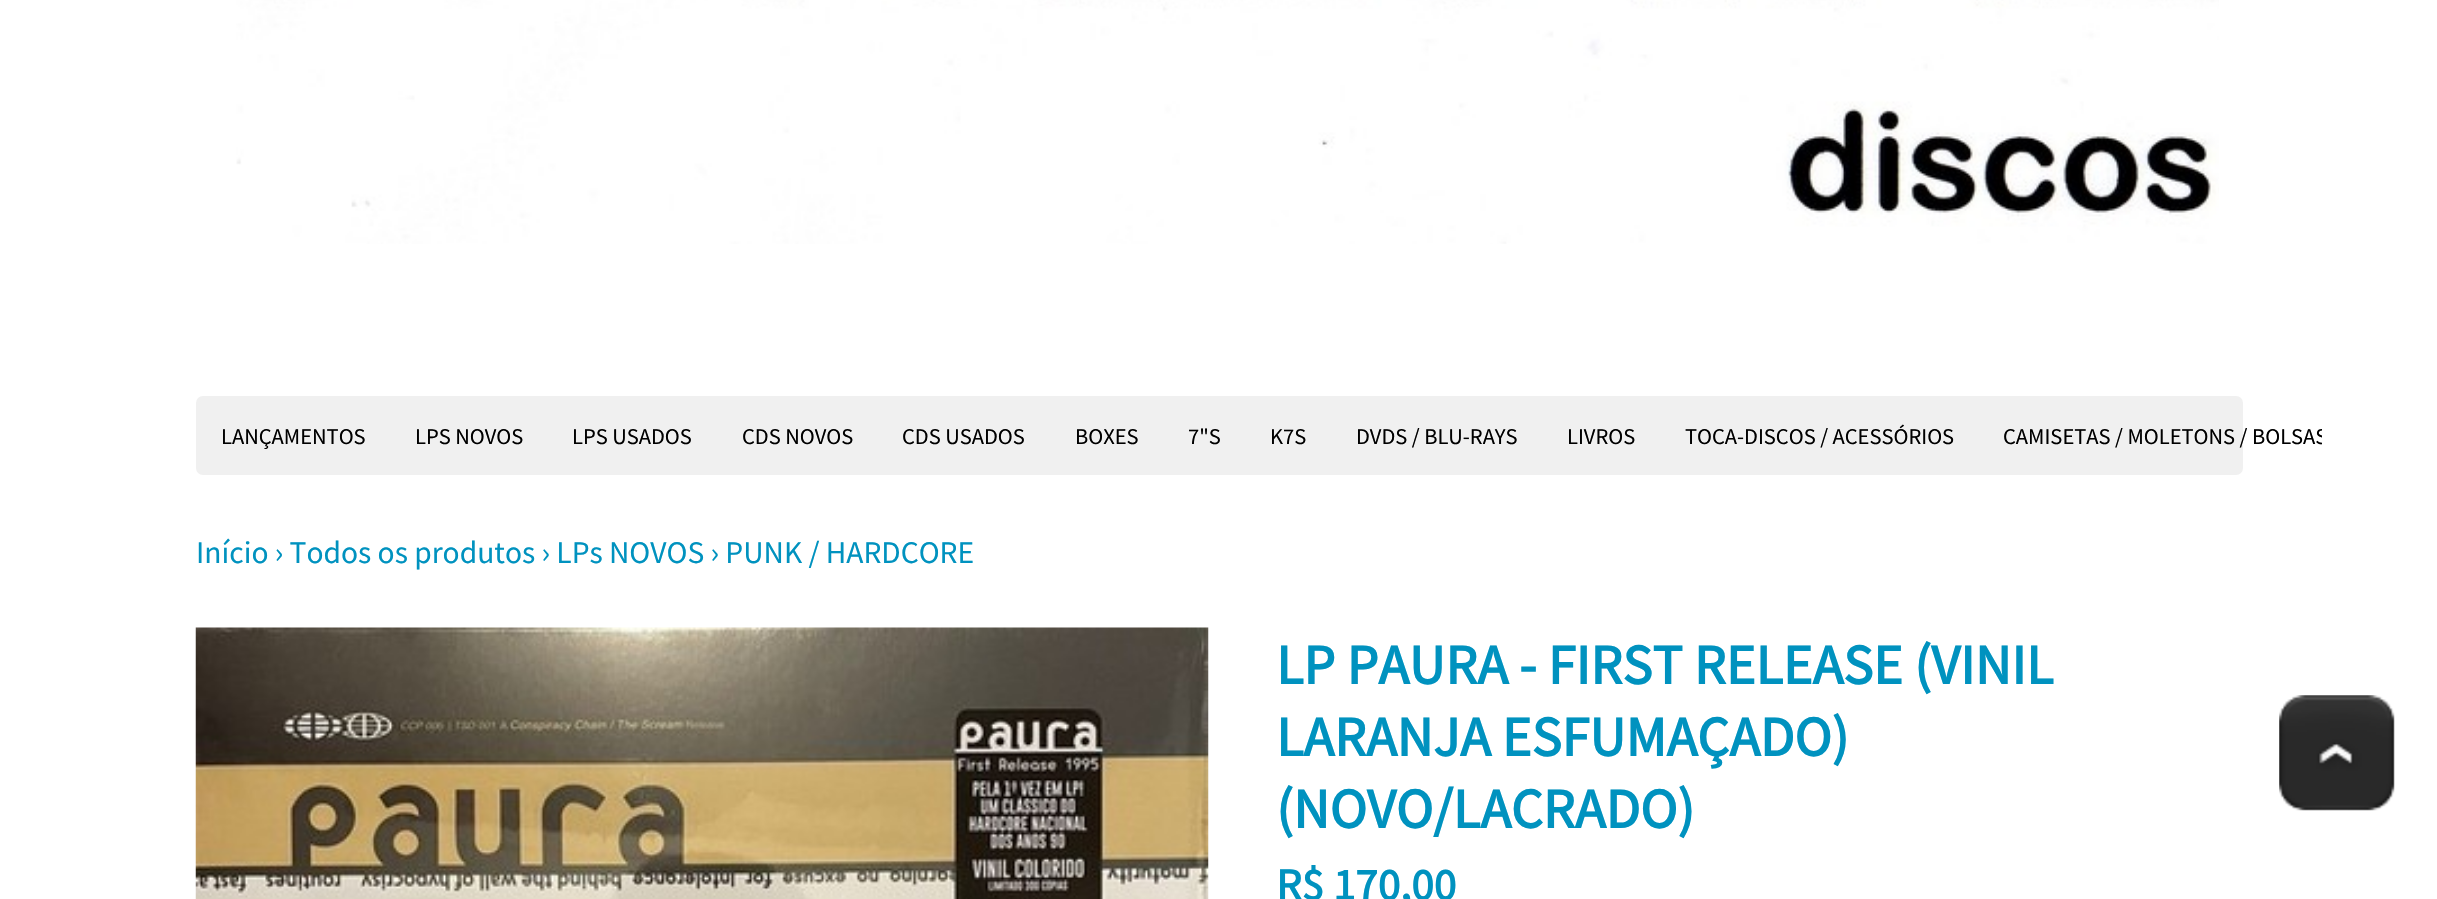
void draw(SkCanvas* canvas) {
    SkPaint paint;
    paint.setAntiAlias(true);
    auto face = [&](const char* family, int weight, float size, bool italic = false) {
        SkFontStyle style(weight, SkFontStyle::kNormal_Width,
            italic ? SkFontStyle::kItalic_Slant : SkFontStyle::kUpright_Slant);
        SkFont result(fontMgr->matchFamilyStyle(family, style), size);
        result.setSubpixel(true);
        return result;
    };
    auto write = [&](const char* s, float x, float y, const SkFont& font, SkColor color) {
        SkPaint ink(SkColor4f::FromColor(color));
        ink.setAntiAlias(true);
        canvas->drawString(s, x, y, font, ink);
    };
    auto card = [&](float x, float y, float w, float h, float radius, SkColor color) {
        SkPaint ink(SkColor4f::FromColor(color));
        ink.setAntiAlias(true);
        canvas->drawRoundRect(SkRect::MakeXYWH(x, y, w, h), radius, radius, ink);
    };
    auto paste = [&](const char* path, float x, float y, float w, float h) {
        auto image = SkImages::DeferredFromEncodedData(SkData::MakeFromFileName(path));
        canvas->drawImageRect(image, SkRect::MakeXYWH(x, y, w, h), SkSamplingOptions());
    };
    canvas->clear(SK_ColorWHITE);
    paste("pic1.png", 236, 0, 1983, 244);
    card(196, 396, 2047, 79, 7, SkColorSetRGB(240, 240, 240));
    auto kFont1 = face("Source Sans Pro", 400, 22.5f);
    write("LANÇAMENTOS", 221, 444, kFont1, SK_ColorBLACK);
    write("LPS NOVOS", 415, 444, kFont1, SK_ColorBLACK);
    write("LPS USADOS", 572, 444, kFont1, SK_ColorBLACK);
    write("CDS NOVOS", 742, 444, kFont1, SK_ColorBLACK);
    write("CDS USADOS", 902, 444, kFont1, SK_ColorBLACK);
    write("BOXES", 1075, 444, kFont1, SK_ColorBLACK);
    write("7\"S", 1188, 444, kFont1, SK_ColorBLACK);
    write("K7S", 1270, 444, kFont1, SK_ColorBLACK);
    write("DVDS / BLU-RAYS", 1356, 444, kFont1, SK_ColorBLACK);
    write("LIVROS", 1567, 444, kFont1, SK_ColorBLACK);
    write("TOCA-DISCOS / ACESSÓRIOS", 1685, 444, kFont1, SK_ColorBLACK);
    canvas->save();
    canvas->clipPath(SkPathBuilder().moveTo(124, 317).lineTo(2315, 317).cubicTo(2319, 317, 2322, 320, 2322, 324).lineTo(2322, 2644).cubicTo(2322, 2648, 2319, 2651, 2315, 2651).lineTo(124, 2651).cubicTo(120, 2651, 117, 2648, 117, 2644).lineTo(117, 324).cubicTo(117, 320, 120, 317, 124, 317).close().detach(), true);
    write("CAMISETAS / MOLETONS / BOLSAS", 2003, 444, kFont1, SK_ColorBLACK);
    canvas->restore();
    auto kFont2 = face("Source Sans Pro", 400, 31.5f);
    write("Início › Todos os produtos › LPs NOVOS › PUNK / HARDCORE", 196, 563, kFont2, SkColorSetRGB(0, 146, 191));
    paste("pic2.png", 195, 627, 1014, 272);
    auto kFont3 = face("Source Sans Pro", 700, 56.25f);
    write("LP PAURA - FIRST RELEASE (VINIL", 1276, 684, kFont3, SkColorSetRGB(0, 146, 191));
    write("LARANJA ESFUMAÇADO)", 1276, 756, kFont3, SkColorSetRGB(0, 146, 191));
    write("(NOVO/LACRADO)", 1276, 828, kFont3, SkColorSetRGB(0, 146, 191));
    auto kFont4 = face("Source Sans Pro", 700, 45);
    write("R$ 170,00", 1276, 900, kFont4, SkColorSetRGB(0, 146, 191));
    paste("pic3.png", 2279, 695, 116, 116);
}
